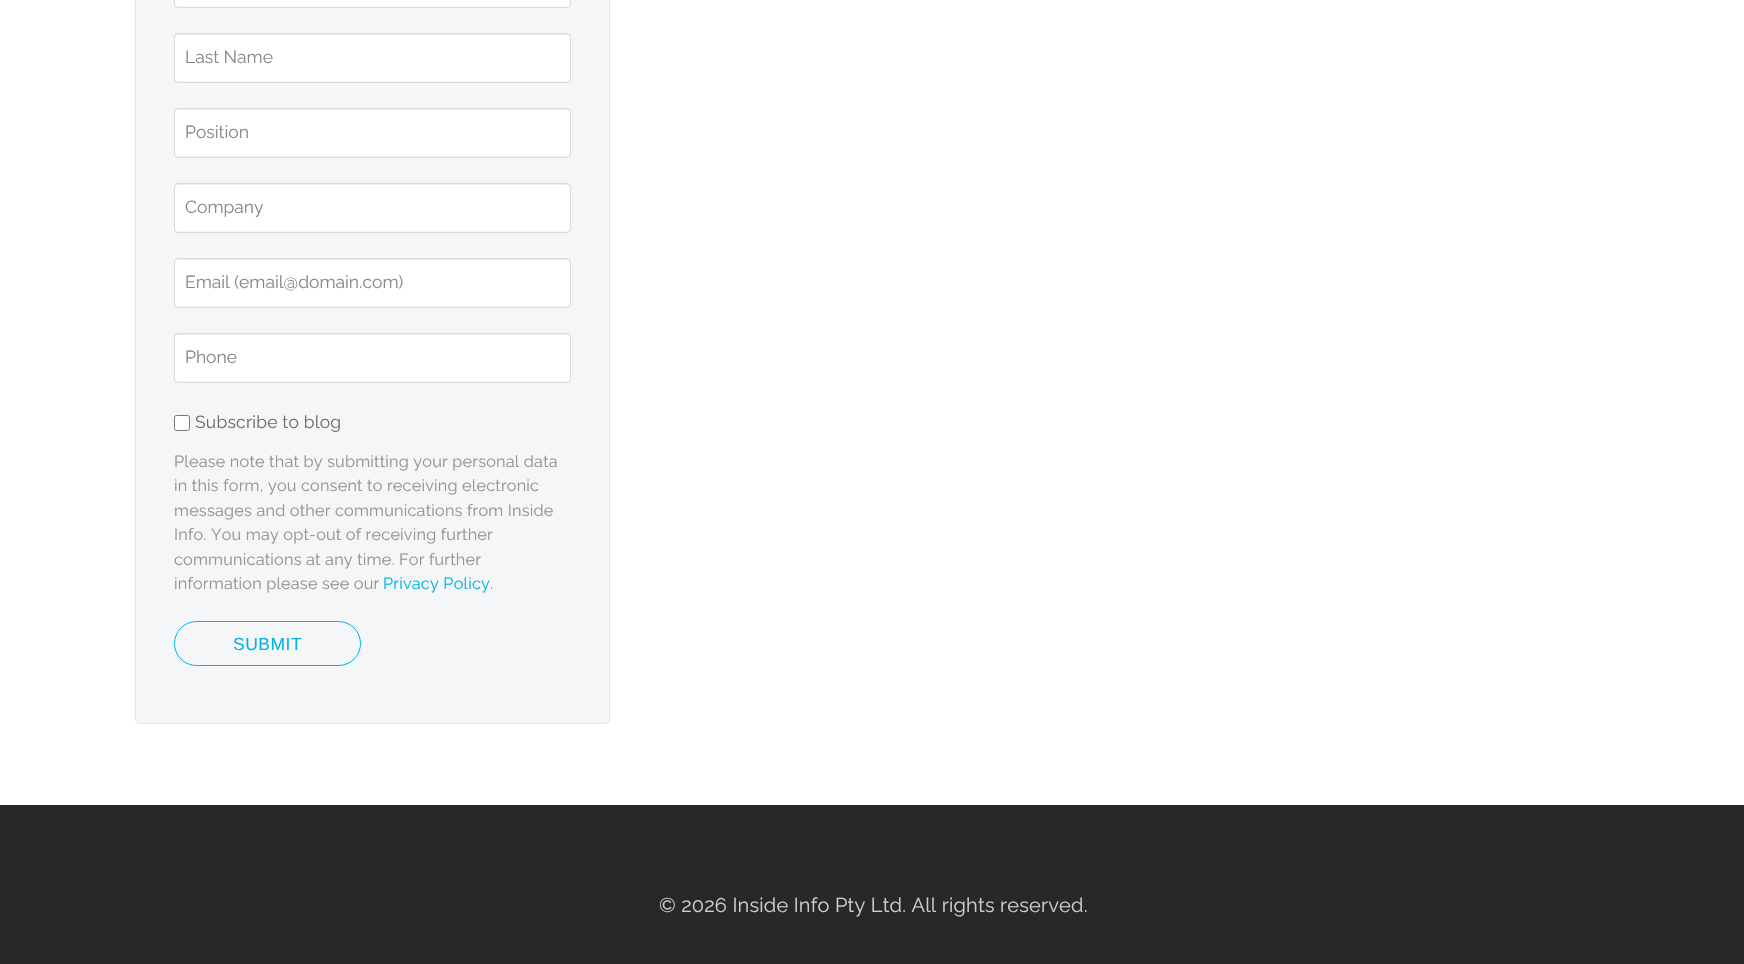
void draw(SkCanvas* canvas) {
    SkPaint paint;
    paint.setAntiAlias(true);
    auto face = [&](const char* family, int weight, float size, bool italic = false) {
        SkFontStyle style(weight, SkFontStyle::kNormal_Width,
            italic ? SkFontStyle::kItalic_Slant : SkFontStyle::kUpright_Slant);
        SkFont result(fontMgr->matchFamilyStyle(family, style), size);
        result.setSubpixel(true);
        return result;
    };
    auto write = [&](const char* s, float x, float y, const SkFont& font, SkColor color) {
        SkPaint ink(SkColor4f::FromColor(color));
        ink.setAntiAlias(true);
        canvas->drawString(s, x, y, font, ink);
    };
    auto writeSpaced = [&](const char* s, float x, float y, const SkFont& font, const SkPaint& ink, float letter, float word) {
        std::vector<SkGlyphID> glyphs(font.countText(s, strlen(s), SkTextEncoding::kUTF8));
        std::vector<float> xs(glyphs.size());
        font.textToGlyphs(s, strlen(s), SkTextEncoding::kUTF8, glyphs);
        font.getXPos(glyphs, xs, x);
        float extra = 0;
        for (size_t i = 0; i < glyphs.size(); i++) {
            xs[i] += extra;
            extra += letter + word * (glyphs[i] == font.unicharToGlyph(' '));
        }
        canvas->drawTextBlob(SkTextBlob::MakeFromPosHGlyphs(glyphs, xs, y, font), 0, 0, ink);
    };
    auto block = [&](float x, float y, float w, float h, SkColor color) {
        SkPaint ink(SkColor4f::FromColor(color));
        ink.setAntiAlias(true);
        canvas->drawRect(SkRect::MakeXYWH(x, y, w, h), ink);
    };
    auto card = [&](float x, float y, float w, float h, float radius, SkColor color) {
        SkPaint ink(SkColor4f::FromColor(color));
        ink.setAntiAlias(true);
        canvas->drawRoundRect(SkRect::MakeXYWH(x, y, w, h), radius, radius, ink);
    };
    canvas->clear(SK_ColorWHITE);
    paint.setColor(SkColorSetRGB(245, 246, 248));
    canvas->drawRoundRect(SkRect::MakeXYWH(135.5f, -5.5f, 474, 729), 4.5f, 4.5f, paint);
    paint.setStyle(SkPaint::kStroke_Style);
    paint.setStrokeWidth(1);
    paint.setColor(SkColorSetRGB(230, 230, 230));
    canvas->drawRoundRect(SkRect::MakeXYWH(135.5f, -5.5f, 474, 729), 4.5f, 4.5f, paint);
    card(175, -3, 395, 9, 2.5f, SK_ColorWHITE);
    paint.setColor(SkColorSetRGB(218, 218, 218));
    canvas->drawRoundRect(SkRect::MakeXYWH(174.5f, -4.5f, 396, 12), 3.5f, 3.5f, paint);
    card(175, 34, 395, 47, 2.5f, SK_ColorWHITE);
    paint.setStyle(SkPaint::kFill_Style);
    paint.setColor(SkColorSetARGB(18, 0, 0, 0));
    canvas->drawPath(SkPathBuilder().moveTo(178, 35).lineTo(568, 35).cubicTo(569, 35, 570, 36, 570, 38).lineTo(570, 35).lineTo(568, 34).lineTo(178, 34).cubicTo(175, 34, 175, 36, 175, 38).cubicTo(175, 36, 176, 35, 178, 35).close().detach(), paint);
    paint.setStyle(SkPaint::kStroke_Style);
    paint.setColor(SkColorSetRGB(218, 218, 218));
    canvas->drawRoundRect(SkRect::MakeXYWH(174.5f, 33.5f, 396, 49), 3.5f, 3.5f, paint);
    auto kFont1 = face("Raleway", 400, 17.5f);
    write("Last Name", 185, 63, kFont1, SkColorSetRGB(136, 136, 136));
    card(175, 109, 395, 47, 2.5f, SK_ColorWHITE);
    paint.setStyle(SkPaint::kFill_Style);
    paint.setColor(SkColorSetARGB(18, 0, 0, 0));
    canvas->drawPath(SkPathBuilder().moveTo(178, 110).lineTo(568, 110).cubicTo(569, 110, 570, 111, 570, 112).cubicTo(570, 110, 569, 109, 568, 109).lineTo(178, 109).lineTo(176, 110).lineTo(175, 112).cubicTo(175, 111, 176, 110, 178, 110).close().detach(), paint);
    paint.setStyle(SkPaint::kStroke_Style);
    paint.setColor(SkColorSetRGB(218, 218, 218));
    canvas->drawRoundRect(SkRect::MakeXYWH(174.5f, 108.5f, 396, 49), 3.5f, 3.5f, paint);
    write("Position", 185, 138, kFont1, SkColorSetRGB(136, 136, 136));
    card(175, 184, 395, 47, 2.5f, SK_ColorWHITE);
    paint.setStyle(SkPaint::kFill_Style);
    paint.setColor(SkColorSetARGB(18, 0, 0, 0));
    canvas->drawPath(SkPathBuilder().moveTo(178, 185).lineTo(568, 185).cubicTo(569, 185, 570, 186, 570, 188).lineTo(570, 185).lineTo(568, 184).lineTo(178, 184).cubicTo(175, 184, 175, 186, 175, 188).cubicTo(175, 186, 176, 185, 178, 185).close().detach(), paint);
    paint.setStyle(SkPaint::kStroke_Style);
    paint.setColor(SkColorSetRGB(218, 218, 218));
    canvas->drawRoundRect(SkRect::MakeXYWH(174.5f, 183.5f, 396, 49), 3.5f, 3.5f, paint);
    write("Company", 185, 213, kFont1, SkColorSetRGB(136, 136, 136));
    card(175, 259, 395, 47, 2.5f, SK_ColorWHITE);
    paint.setStyle(SkPaint::kFill_Style);
    paint.setColor(SkColorSetARGB(18, 0, 0, 0));
    canvas->drawPath(SkPathBuilder().moveTo(178, 260).lineTo(568, 260).cubicTo(569, 260, 570, 261, 570, 262).cubicTo(570, 260, 569, 259, 568, 259).lineTo(178, 259).lineTo(176, 260).lineTo(175, 262).cubicTo(175, 261, 176, 260, 178, 260).close().detach(), paint);
    paint.setStyle(SkPaint::kStroke_Style);
    paint.setColor(SkColorSetRGB(218, 218, 218));
    canvas->drawRoundRect(SkRect::MakeXYWH(174.5f, 258.5f, 396, 49), 3.5f, 3.5f, paint);
    write("Email (email@domain.com)", 185, 288, kFont1, SkColorSetRGB(136, 136, 136));
    card(175, 334, 395, 47, 2.5f, SK_ColorWHITE);
    paint.setStyle(SkPaint::kFill_Style);
    paint.setColor(SkColorSetARGB(18, 0, 0, 0));
    canvas->drawPath(SkPathBuilder().moveTo(178, 335).lineTo(568, 335).cubicTo(569, 335, 570, 336, 570, 338).lineTo(570, 335).lineTo(568, 334).lineTo(178, 334).cubicTo(175, 334, 175, 336, 175, 338).cubicTo(175, 336, 176, 335, 178, 335).close().detach(), paint);
    paint.setStyle(SkPaint::kStroke_Style);
    paint.setColor(SkColorSetRGB(218, 218, 218));
    canvas->drawRoundRect(SkRect::MakeXYWH(174.5f, 333.5f, 396, 49), 3.5f, 3.5f, paint);
    write("Phone", 185, 363, kFont1, SkColorSetRGB(136, 136, 136));
    paint.setStyle(SkPaint::kFill_Style);
    paint.setColor(SK_ColorWHITE);
    canvas->drawRoundRect(SkRect::MakeXYWH(174.5f, 415.5f, 15, 15), 2, 2, paint);
    paint.setStyle(SkPaint::kStroke_Style);
    paint.setColor(SkColorSetRGB(118, 118, 118));
    canvas->drawRoundRect(SkRect::MakeXYWH(174.5f, 415.5f, 15, 15), 2, 2, paint);
    paint.setStyle(SkPaint::kFill_Style);
    paint.setColor(SkColorSetRGB(107, 109, 109));
    writeSpaced("Subscribe to blog", 195, 428, kFont1, paint, 0.2f, 0);
    auto kFont2 = face("Raleway", 400, 16.25f);
    paint.setColor(SkColorSetRGB(147, 147, 150));
    writeSpaced("Please note that by submitting your personal data", 174, 467, kFont2, paint, 0.2f, 0);
    writeSpaced("in this form, you consent to receiving electronic", 174, 491, kFont2, paint, 0.2f, 0);
    writeSpaced("messages and other communications from Inside", 174, 516, kFont2, paint, 0.2f, 0);
    writeSpaced("Info. You may opt-out of receiving further", 174, 540, kFont2, paint, 0.2f, 0);
    writeSpaced("communications at any time. For further", 174, 565, kFont2, paint, 0.2f, 0);
    writeSpaced("information please see our", 174, 589, kFont2, paint, 0.2f, 0);
    paint.setColor(SkColorSetRGB(0, 181, 225));
    writeSpaced("Privacy Policy", 383, 589, kFont2, paint, 0.2f, 0);
    paint.setColor(SkColorSetRGB(147, 147, 150));
    writeSpaced(".", 490, 589, kFont2, paint, 0.2f, 0);
    paint.setStyle(SkPaint::kStroke_Style);
    paint.setColor(SkColorSetRGB(0, 181, 225));
    canvas->drawRoundRect(SkRect::MakeXYWH(174.5f, 621.5f, 186, 44), 22, 22, paint);
    auto kFont3 = face("Liberation Sans", 400, 17.5f);
    paint.setStyle(SkPaint::kFill_Style);
    writeSpaced("SUBMIT", 233, 650, kFont3, paint, 0.5f, 0);
    block(0, 805, 1744, 159, SkColorSetRGB(40, 40, 40));
    auto kFont4 = face("Raleway", 400, 20);
    paint.setColor(SkColorSetRGB(207, 207, 207));
    writeSpaced("© 2026 Inside Info Pty Ltd. All rights reserved.", 659, 912, kFont4, paint, 0.2f, 0);
}
